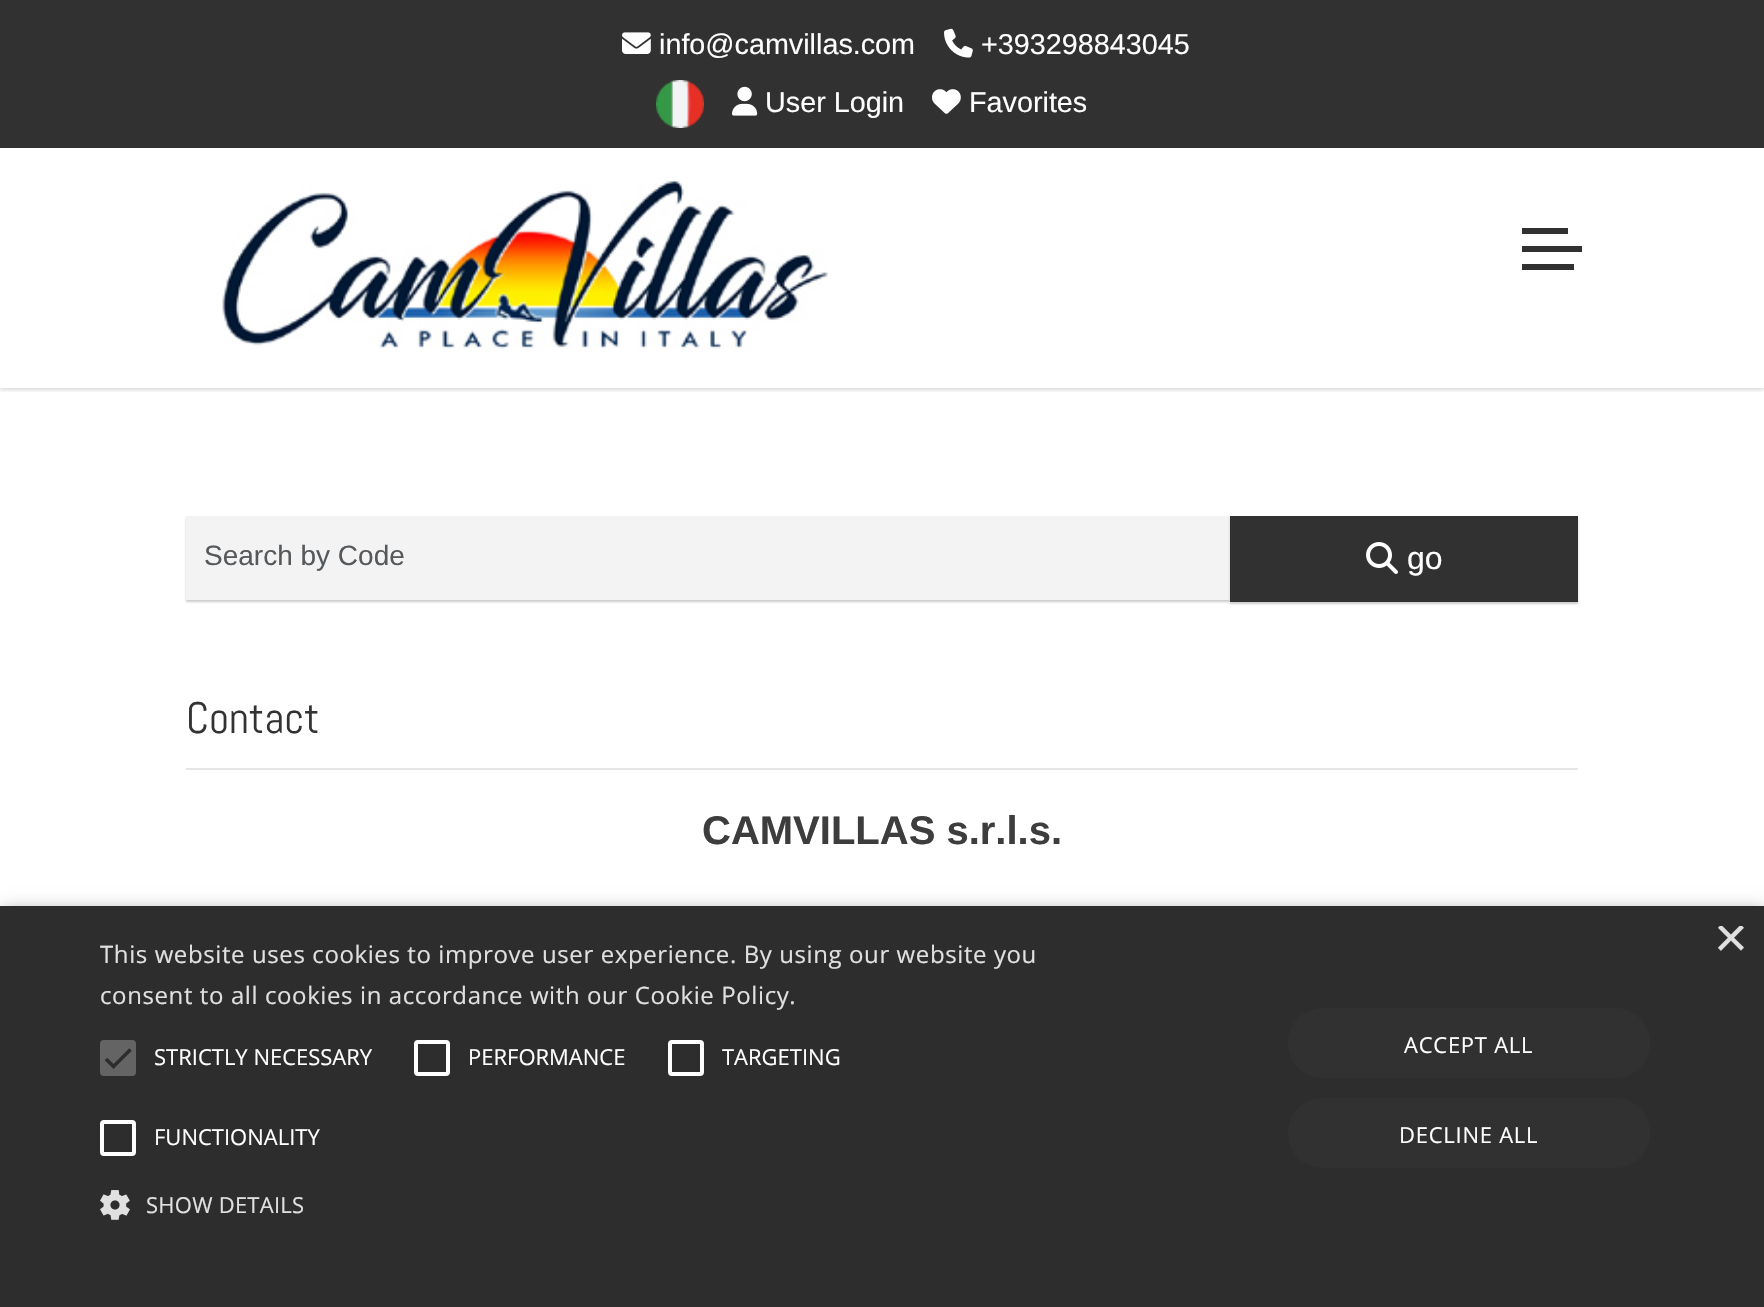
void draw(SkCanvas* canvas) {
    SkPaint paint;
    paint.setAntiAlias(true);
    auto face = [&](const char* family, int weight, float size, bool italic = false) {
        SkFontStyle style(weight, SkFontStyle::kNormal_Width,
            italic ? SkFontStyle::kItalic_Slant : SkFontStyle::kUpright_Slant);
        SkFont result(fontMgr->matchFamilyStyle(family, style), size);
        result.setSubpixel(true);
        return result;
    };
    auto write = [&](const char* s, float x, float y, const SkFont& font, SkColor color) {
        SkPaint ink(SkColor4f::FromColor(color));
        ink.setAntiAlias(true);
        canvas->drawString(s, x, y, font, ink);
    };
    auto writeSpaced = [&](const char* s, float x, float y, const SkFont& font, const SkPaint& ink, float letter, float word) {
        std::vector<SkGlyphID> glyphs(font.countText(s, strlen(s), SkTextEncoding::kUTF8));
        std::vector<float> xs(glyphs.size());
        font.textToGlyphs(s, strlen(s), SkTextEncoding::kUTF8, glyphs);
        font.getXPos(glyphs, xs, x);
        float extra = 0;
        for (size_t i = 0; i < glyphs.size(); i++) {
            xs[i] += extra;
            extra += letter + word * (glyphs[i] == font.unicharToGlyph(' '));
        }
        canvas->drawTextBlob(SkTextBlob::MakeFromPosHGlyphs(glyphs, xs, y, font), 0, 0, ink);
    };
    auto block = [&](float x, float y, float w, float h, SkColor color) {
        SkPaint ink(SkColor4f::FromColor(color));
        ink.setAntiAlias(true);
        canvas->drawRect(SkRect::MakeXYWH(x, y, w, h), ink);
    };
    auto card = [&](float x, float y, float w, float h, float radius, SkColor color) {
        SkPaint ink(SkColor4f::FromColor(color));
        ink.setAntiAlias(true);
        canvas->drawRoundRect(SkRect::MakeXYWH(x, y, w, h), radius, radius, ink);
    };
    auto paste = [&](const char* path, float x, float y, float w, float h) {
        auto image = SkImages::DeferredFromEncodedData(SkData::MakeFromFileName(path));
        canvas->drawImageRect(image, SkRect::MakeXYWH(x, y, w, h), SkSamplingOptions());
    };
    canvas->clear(SK_ColorWHITE);
    canvas->save();
    canvas->clipRect(SkRect::MakeXYWH(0, 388, 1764, 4));
    paint.setColor(SkColorSetARGB(38, 0, 0, 0));
    paint.setMaskFilter(SkMaskFilter::MakeBlur(kNormal_SkBlurStyle, 2));
    canvas->drawRect(SkRect::MakeXYWH(0, 2, 1764, 388), paint);
    paint.setMaskFilter(nullptr);
    canvas->restore();
    block(0, 0, 1764, 148, SkColorSetRGB(49, 49, 49));
    paste("pic1.png", 622, 32, 29, 22);
    auto kFont1 = face("Liberation Sans", 400, 28.75f);
    write("info@camvillas.com", 659, 54, kFont1, SK_ColorWHITE);
    paste("pic2.png", 944, 28, 29, 30);
    write("+393298843045", 981, 54, kFont1, SK_ColorWHITE);
    paste("pic3.png", 656, 80, 48, 48);
    paste("pic4.png", 732, 86, 26, 30);
    write("User Login", 765, 112, kFont1, SK_ColorWHITE);
    paste("pic5.png", 932, 89, 29, 25);
    write("Favorites", 969, 112, kFont1, SK_ColorWHITE);
    paste("pic6.png", 222, 180, 606, 169);
    block(1522, 228, 46, 6, SkColorSetRGB(49, 49, 49));
    block(1522, 246, 60, 6, SkColorSetRGB(49, 49, 49));
    block(1522, 264, 52, 6, SkColorSetRGB(49, 49, 49));
    paint.setColor(SkColorSetARGB(51, 0, 0, 0));
    paint.setMaskFilter(SkMaskFilter::MakeBlur(kNormal_SkBlurStyle, 1));
    canvas->drawRect(SkRect::MakeXYWH(186, 518, 1044, 84), paint);
    paint.setMaskFilter(nullptr);
    block(186, 516, 1044, 84, SkColorSetRGB(243, 243, 243));
    auto kFont2 = face("Liberation Sans", 400, 28);
    write("Search by Code", 204, 565, kFont2, SkColorSetRGB(86, 89, 92));
    paint.setMaskFilter(SkMaskFilter::MakeBlur(kNormal_SkBlurStyle, 1));
    canvas->drawRect(SkRect::MakeXYWH(1230, 518, 348, 86), paint);
    paint.setMaskFilter(nullptr);
    block(1230, 516, 348, 86, SkColorSetRGB(49, 49, 49));
    paste("pic7.png", 1366, 542, 32, 32);
    auto kFont3 = face("Liberation Sans", 400, 32);
    write("go", 1407, 569, kFont3, SK_ColorWHITE);
    block(186, 768, 1392, 2, SkColorSetRGB(230, 230, 230));
    auto kFont4 = face("Abel", 400, 44);
    write("Contact", 186, 733, kFont4, SkColorSetRGB(51, 51, 51));
    auto kFont5 = face("Liberation Sans", 700, 40);
    write("CAMVILLAS s.r.l.s.", 702, 844, kFont5, SkColorSetRGB(61, 61, 61));
    paint.setColor(SkColorSetARGB(89, 0, 0, 0));
    paint.setMaskFilter(SkMaskFilter::MakeBlur(kNormal_SkBlurStyle, 8));
    canvas->drawRect(SkRect::MakeXYWH(2, 910, 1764, 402), paint);
    paint.setMaskFilter(nullptr);
    block(0, 906, 1764, 401, SkColorSetRGB(45, 45, 45));
    canvas->save();
    canvas->clipRect(SkRect::MakeXYWH(1714, 926, 30, 30));
    auto kFont6 = face("Liberation Sans", 400, 58);
    write("×", 1714, 957, kFont6, SkColorSetRGB(224, 224, 224));
    canvas->restore();
    auto kFont7 = face("Open Sans", 400, 24);
    paint.setColor(SkColorSetRGB(224, 224, 224));
    writeSpaced("This website uses cookies to improve user experience. By using our website you", 100, 963, kFont7, paint, 0.6f, 0);
    writeSpaced("consent to all cookies in accordance with our Cookie Policy.", 100, 1004, kFont7, paint, 0.6f, 0);
    card(100, 1040, 36, 36, 4, SkColorSetRGB(100, 100, 100));
    paint.setStyle(SkPaint::kStroke_Style);
    paint.setStrokeWidth(3.6f);
    paint.setColor(SkColorSetRGB(45, 45, 45));
    canvas->drawPath(SkPathBuilder().moveTo(106, 1059).lineTo(113.5f, 1066.5f).lineTo(130.5f, 1049.5f).detach(), paint);
    auto kFont8 = face("Open Sans", 400, 22);
    write("STRICTLY NECESSARY", 154, 1065, kFont8, SK_ColorWHITE);
    paint.setStrokeWidth(4);
    paint.setColor(SK_ColorWHITE);
    canvas->drawRoundRect(SkRect::MakeXYWH(416, 1042, 32, 32), 2, 2, paint);
    write("PERFORMANCE", 468, 1065, kFont8, SK_ColorWHITE);
    canvas->drawRoundRect(SkRect::MakeXYWH(670, 1042, 32, 32), 2, 2, paint);
    write("TARGETING", 722, 1065, kFont8, SK_ColorWHITE);
    canvas->drawRoundRect(SkRect::MakeXYWH(102, 1122, 32, 32), 2, 2, paint);
    write("FUNCTIONALITY", 154, 1145, kFont8, SK_ColorWHITE);
    paste("pic8.png", 100, 1190, 30, 30);
    paint.setStyle(SkPaint::kFill_Style);
    paint.setColor(SkColorSetRGB(224, 224, 224));
    writeSpaced("SHOW DETAILS", 146, 1213, kFont8, paint, 0.25f, 0);
    card(1288, 1008, 362, 70, 35, SkColorSetRGB(49, 49, 49));
    paint.setColor(SK_ColorWHITE);
    writeSpaced("ACCEPT ALL", 1404, 1053, kFont8, paint, 0.75f, 0);
    card(1288, 1098, 362, 70, 35, SkColorSetRGB(49, 49, 49));
    writeSpaced("DECLINE ALL", 1399, 1143, kFont8, paint, 0.75f, 0);
}
